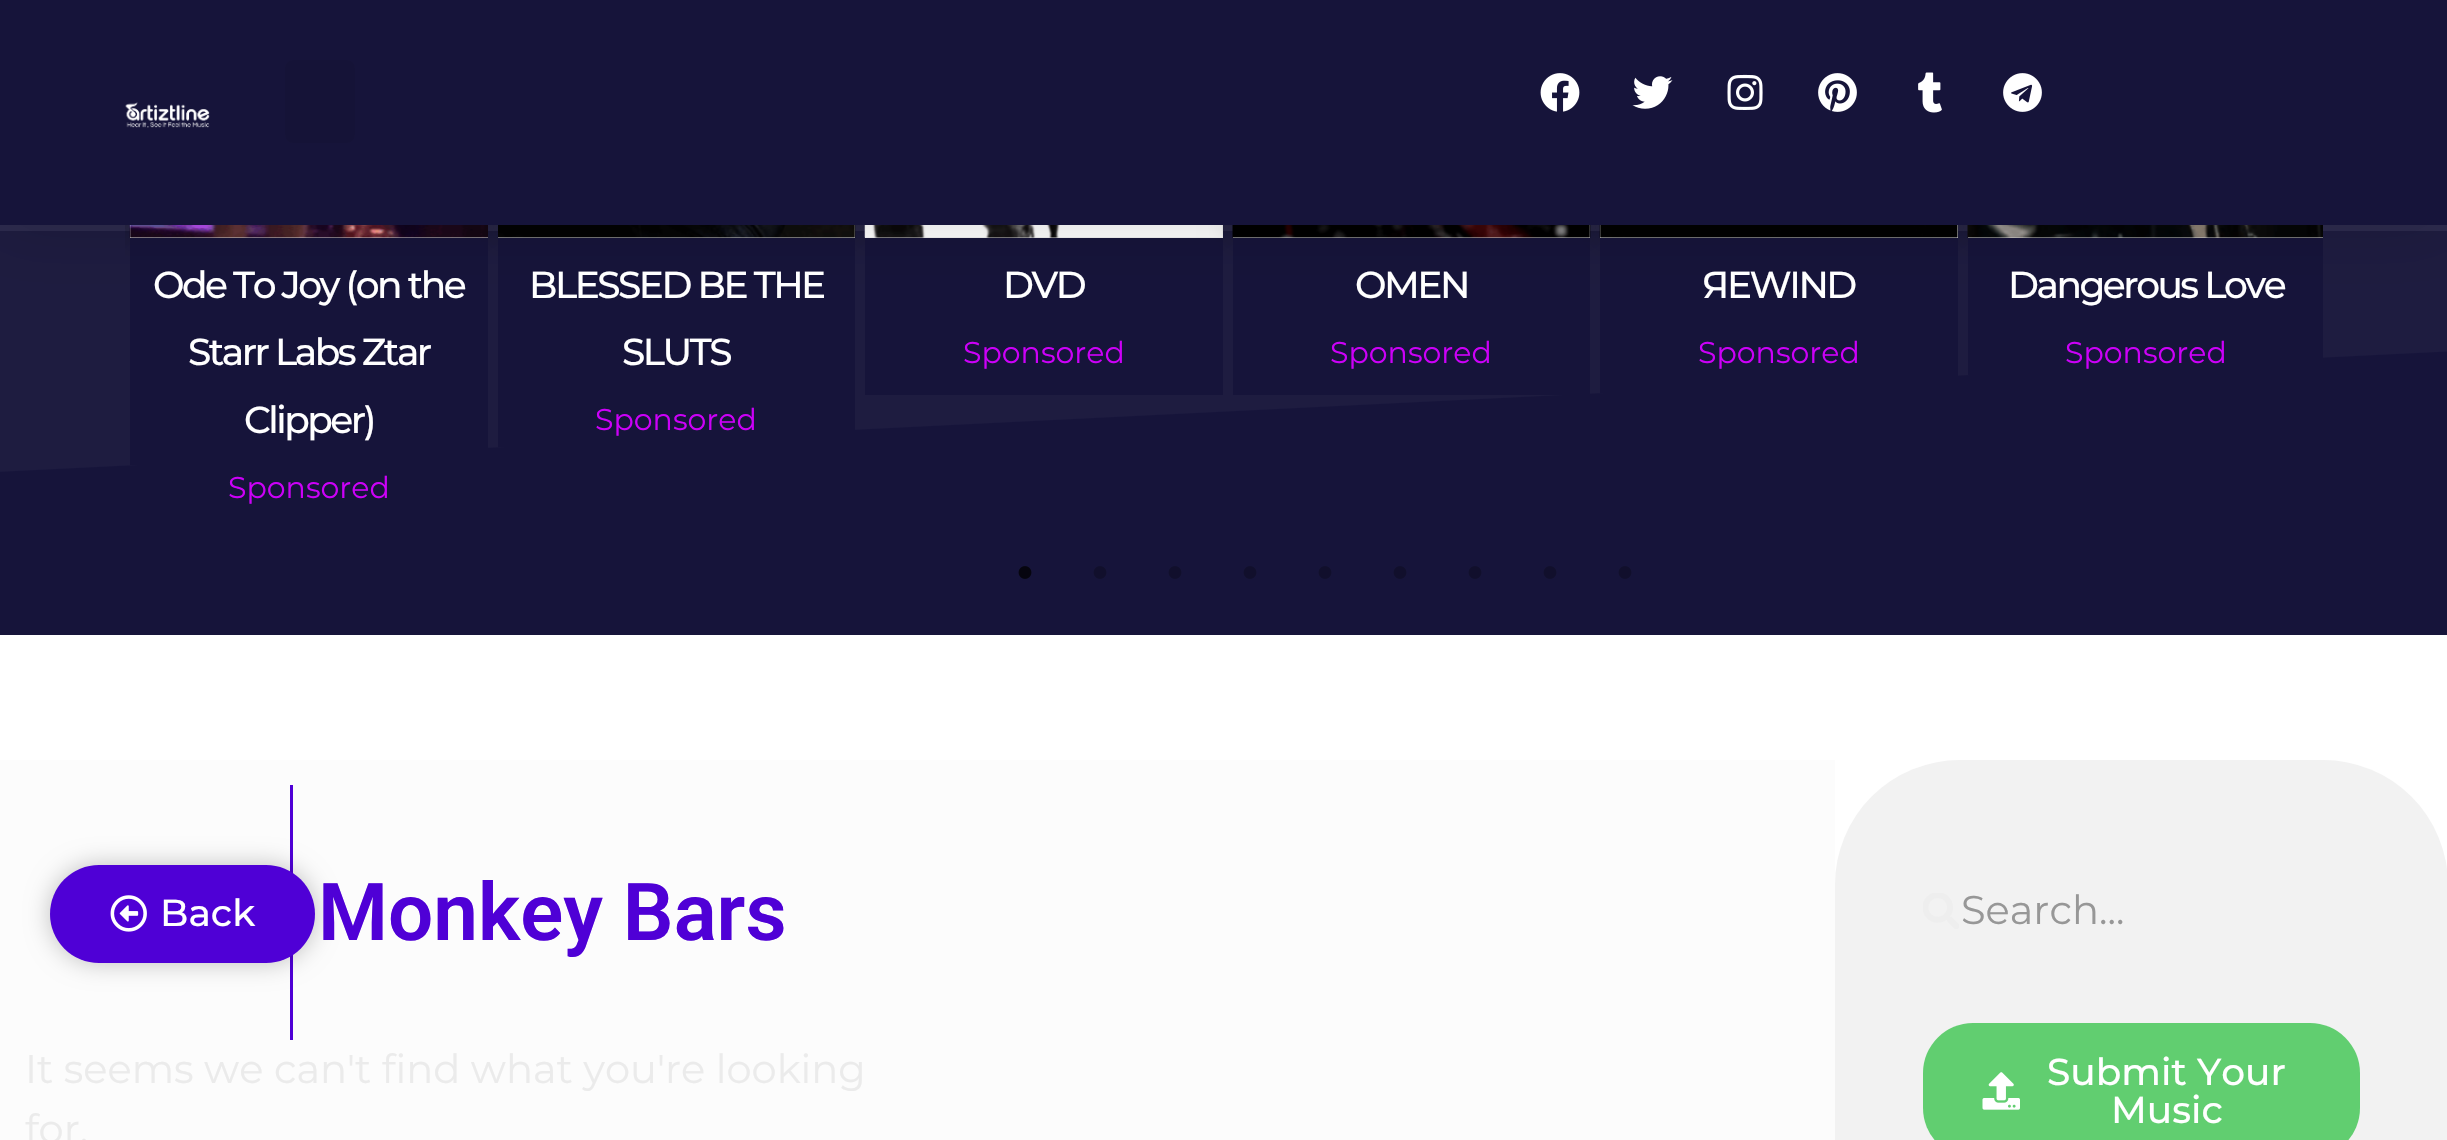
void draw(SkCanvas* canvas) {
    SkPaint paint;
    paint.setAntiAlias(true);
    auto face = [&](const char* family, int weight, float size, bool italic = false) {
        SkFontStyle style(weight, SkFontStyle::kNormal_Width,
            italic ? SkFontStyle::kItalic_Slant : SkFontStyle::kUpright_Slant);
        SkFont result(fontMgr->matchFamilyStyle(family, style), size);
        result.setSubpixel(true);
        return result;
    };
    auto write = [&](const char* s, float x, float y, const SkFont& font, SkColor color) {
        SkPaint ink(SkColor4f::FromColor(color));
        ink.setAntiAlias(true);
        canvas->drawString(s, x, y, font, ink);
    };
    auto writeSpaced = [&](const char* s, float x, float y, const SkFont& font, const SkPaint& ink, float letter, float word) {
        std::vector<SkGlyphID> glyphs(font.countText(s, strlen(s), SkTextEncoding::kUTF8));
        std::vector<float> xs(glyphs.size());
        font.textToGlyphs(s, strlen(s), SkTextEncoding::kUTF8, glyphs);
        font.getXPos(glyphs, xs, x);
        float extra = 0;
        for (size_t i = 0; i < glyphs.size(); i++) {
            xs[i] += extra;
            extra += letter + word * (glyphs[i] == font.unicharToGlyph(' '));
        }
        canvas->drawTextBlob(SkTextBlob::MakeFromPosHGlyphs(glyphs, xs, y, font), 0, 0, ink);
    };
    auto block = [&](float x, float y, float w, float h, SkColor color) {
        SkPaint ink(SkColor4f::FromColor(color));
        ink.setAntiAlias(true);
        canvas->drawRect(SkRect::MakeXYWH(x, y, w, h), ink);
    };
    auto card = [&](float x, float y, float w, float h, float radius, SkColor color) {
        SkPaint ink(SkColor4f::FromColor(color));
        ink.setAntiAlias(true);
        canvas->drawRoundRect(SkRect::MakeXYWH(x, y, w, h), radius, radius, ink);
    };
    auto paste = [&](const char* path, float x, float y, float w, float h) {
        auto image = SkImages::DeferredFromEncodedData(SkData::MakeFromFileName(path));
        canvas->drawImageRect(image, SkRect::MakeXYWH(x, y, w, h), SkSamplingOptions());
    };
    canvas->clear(SK_ColorWHITE);
    block(0, 231, 2447, 404, SkColorSetRGB(22, 20, 58));
    block(0, 225, 2447, 6, SkColorSetRGB(38, 36, 72));
    paint.setColor(SkColorSetARGB(8, 255, 255, 255));
    canvas->drawPath(SkPathBuilder().moveTo(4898, -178).lineTo(-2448, -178).lineTo(-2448, 592).lineTo(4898, 231).close().detach(), paint);
    canvas->save();
    canvas->clipRect(SkRect::MakeXYWH(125, 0, 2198, 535));
    paint.setColor(SkColorSetARGB(54, 0, 0, 0));
    paint.setMaskFilter(SkMaskFilter::MakeBlur(kNormal_SkBlurStyle, 12.5f));
    canvas->drawRect(SkRect::MakeXYWH(-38, -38, 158, 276), paint);
    paint.setMaskFilter(nullptr);
    canvas->restore();
    block(130, 225, 358, 13, SK_ColorWHITE);
    canvas->save();
    canvas->clipRect(SkRect::MakeXYWH(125, 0, 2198, 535));
    paint.setMaskFilter(SkMaskFilter::MakeBlur(kNormal_SkBlurStyle, 12.5f));
    canvas->drawRect(SkRect::MakeXYWH(130, -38, 358, 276), paint);
    paint.setMaskFilter(nullptr);
    canvas->restore();
    paste("pic8.png", 129, 225, 359, 13);
    block(130, 238, 358, 227, SkColorSetRGB(22, 20, 58));
    block(498, 225, 357, 13, SK_ColorWHITE);
    paint.setMaskFilter(SkMaskFilter::MakeBlur(kNormal_SkBlurStyle, 12.5f));
    canvas->drawRect(SkRect::MakeXYWH(498, -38, 357, 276), paint);
    paint.setMaskFilter(nullptr);
    paste("pic9.png", 498, 225, 358, 13);
    block(498, 238, 357, 209, SkColorSetRGB(22, 20, 58));
    block(865, 225, 358, 13, SK_ColorWHITE);
    paint.setMaskFilter(SkMaskFilter::MakeBlur(kNormal_SkBlurStyle, 12.5f));
    canvas->drawRect(SkRect::MakeXYWH(865, -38, 358, 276), paint);
    paint.setMaskFilter(nullptr);
    paste("pic10.png", 864, 225, 359, 13);
    block(865, 238, 358, 157, SkColorSetRGB(22, 20, 58));
    block(1233, 225, 357, 13, SK_ColorWHITE);
    paint.setMaskFilter(SkMaskFilter::MakeBlur(kNormal_SkBlurStyle, 12.5f));
    canvas->drawRect(SkRect::MakeXYWH(1233, -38, 357, 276), paint);
    paint.setMaskFilter(nullptr);
    paste("pic11.png", 1232, 225, 359, 13);
    block(1233, 238, 357, 157, SkColorSetRGB(22, 20, 58));
    block(1600, 225, 358, 13, SK_ColorWHITE);
    paint.setMaskFilter(SkMaskFilter::MakeBlur(kNormal_SkBlurStyle, 12.5f));
    canvas->drawRect(SkRect::MakeXYWH(1600, -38, 358, 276), paint);
    paint.setMaskFilter(nullptr);
    paste("pic12.png", 1599, 225, 359, 13);
    block(1600, 238, 358, 155, SkColorSetRGB(22, 20, 58));
    block(1968, 237, 355, 1, SK_ColorWHITE);
    canvas->save();
    canvas->clipRect(SkRect::MakeXYWH(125, 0, 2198, 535));
    paint.setMaskFilter(SkMaskFilter::MakeBlur(kNormal_SkBlurStyle, 12.5f));
    canvas->drawRect(SkRect::MakeXYWH(1968, -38, 357, 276), paint);
    paint.setMaskFilter(nullptr);
    canvas->restore();
    paste("pic13.png", 1967, 225, 356, 13);
    block(1968, 238, 355, 137, SkColorSetRGB(22, 20, 58));
    paint.setColor(SkColorSetARGB(38, 0, 0, 0));
    paint.setMaskFilter(SkMaskFilter::MakeBlur(kNormal_SkBlurStyle, 30));
    canvas->drawRect(SkRect::MakeXYWH(0, 0, 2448, 225), paint);
    paint.setMaskFilter(nullptr);
    block(0, 0, 2447, 225, SkColorSetRGB(22, 20, 58));
    paste("pic1.png", 125, 102, 85, 26);
    card(285, 60, 70, 83, 8, SkColorSetRGB(21, 19, 55));
    paste("pic2.png", 1540, 73, 40, 39);
    paste("pic3.png", 1632, 76, 41, 33);
    paste("pic4.png", 1727, 74, 36, 36);
    paste("pic5.png", 1818, 73, 39, 39);
    paste("pic6.png", 1918, 72, 24, 41);
    paste("pic7.png", 2003, 73, 39, 39);
    auto kFont1 = face("Montserrat", 500, 37.5f);
    paint.setColor(SK_ColorWHITE);
    writeSpaced("Ode To Joy (on the", 153, 298, kFont1, paint, -2.5f, 0);
    writeSpaced("Starr Labs Ztar", 188, 365, kFont1, paint, -2.5f, 0);
    writeSpaced("Clipper)", 244, 433, kFont1, paint, -2.5f, 0);
    auto kFont2 = face("Montserrat", 400, 30);
    write("Sponsored", 228, 498, kFont2, SkColorSetRGB(204, 0, 248));
    writeSpaced("BLESSED BE THE", 529, 298, kFont1, paint, -2.5f, 0);
    writeSpaced("SLUTS", 622, 365, kFont1, paint, -2.5f, 0);
    write("Sponsored", 595, 430, kFont2, SkColorSetRGB(204, 0, 248));
    writeSpaced("DVD", 1003, 298, kFont1, paint, -2.5f, 0);
    write("Sponsored", 963, 363, kFont2, SkColorSetRGB(204, 0, 248));
    writeSpaced("OMEN", 1355, 298, kFont1, paint, -2.5f, 0);
    write("Sponsored", 1330, 363, kFont2, SkColorSetRGB(204, 0, 248));
    writeSpaced("ЯEWIND", 1702, 298, kFont1, paint, -2.5f, 0);
    write("Sponsored", 1698, 363, kFont2, SkColorSetRGB(204, 0, 248));
    writeSpaced("Dangerous Love", 2008, 298, kFont1, paint, -2.5f, 0);
    write("Sponsored", 2065, 363, kFont2, SkColorSetRGB(204, 0, 248));
    paste("pic14.png", 1018, 566, 14, 13);
    paste("pic15.png", 1093, 566, 14, 13);
    paste("pic15.png", 1168, 566, 14, 13);
    paste("pic15.png", 1243, 566, 14, 13);
    paste("pic15.png", 1318, 566, 14, 13);
    paste("pic15.png", 1393, 566, 14, 13);
    paste("pic15.png", 1468, 566, 14, 13);
    paste("pic15.png", 1543, 566, 14, 13);
    paste("pic15.png", 1618, 566, 14, 13);
    block(0, 760, 1835, 380, SkColorSetRGB(252, 252, 252));
    block(290, 785, 3, 255, SkColorSetRGB(79, 0, 214));
    paint.setColor(SkColorSetARGB(61, 0, 0, 0));
    paint.setMaskFilter(SkMaskFilter::MakeBlur(kNormal_SkBlurStyle, 12.5f));
    canvas->drawRoundRect(SkRect::MakeXYWH(50, 865, 265, 98), 49, 49, paint);
    paint.setMaskFilter(nullptr);
    card(50, 865, 265, 98, 49, SkColorSetRGB(79, 0, 214));
    paste("pic16.png", 110, 895, 37, 37);
    write("Back", 160, 926, kFont1, SK_ColorWHITE);
    auto kFont3 = face("Roboto", 600, 80);
    write("Monkey Bars", 318, 940, kFont3, SkColorSetRGB(79, 0, 214));
    auto kFont4 = face("Montserrat", 400, 40);
    write("It seems we can't find what you're looking", 25, 1083, kFont4, SkColorSetRGB(235, 235, 235));
    write("for.", 25, 1143, kFont4, SkColorSetRGB(235, 235, 235));
    card(1835, 760, 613, 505, 125, SkColorSetRGB(242, 242, 242));
    paste("pic17.png", 1923, 893, 36, 36);
    write("Search...", 1961, 924, kFont4, SkColorSetRGB(151, 151, 151));
    card(1923, 1023, 437, 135, 50, SkColorSetRGB(97, 206, 112));
    paste("pic18.png", 1982, 1072, 38, 38);
    write("Submit Your", 2047, 1085, kFont1, SK_ColorWHITE);
    write("Music", 2111, 1123, kFont1, SK_ColorWHITE);
}
